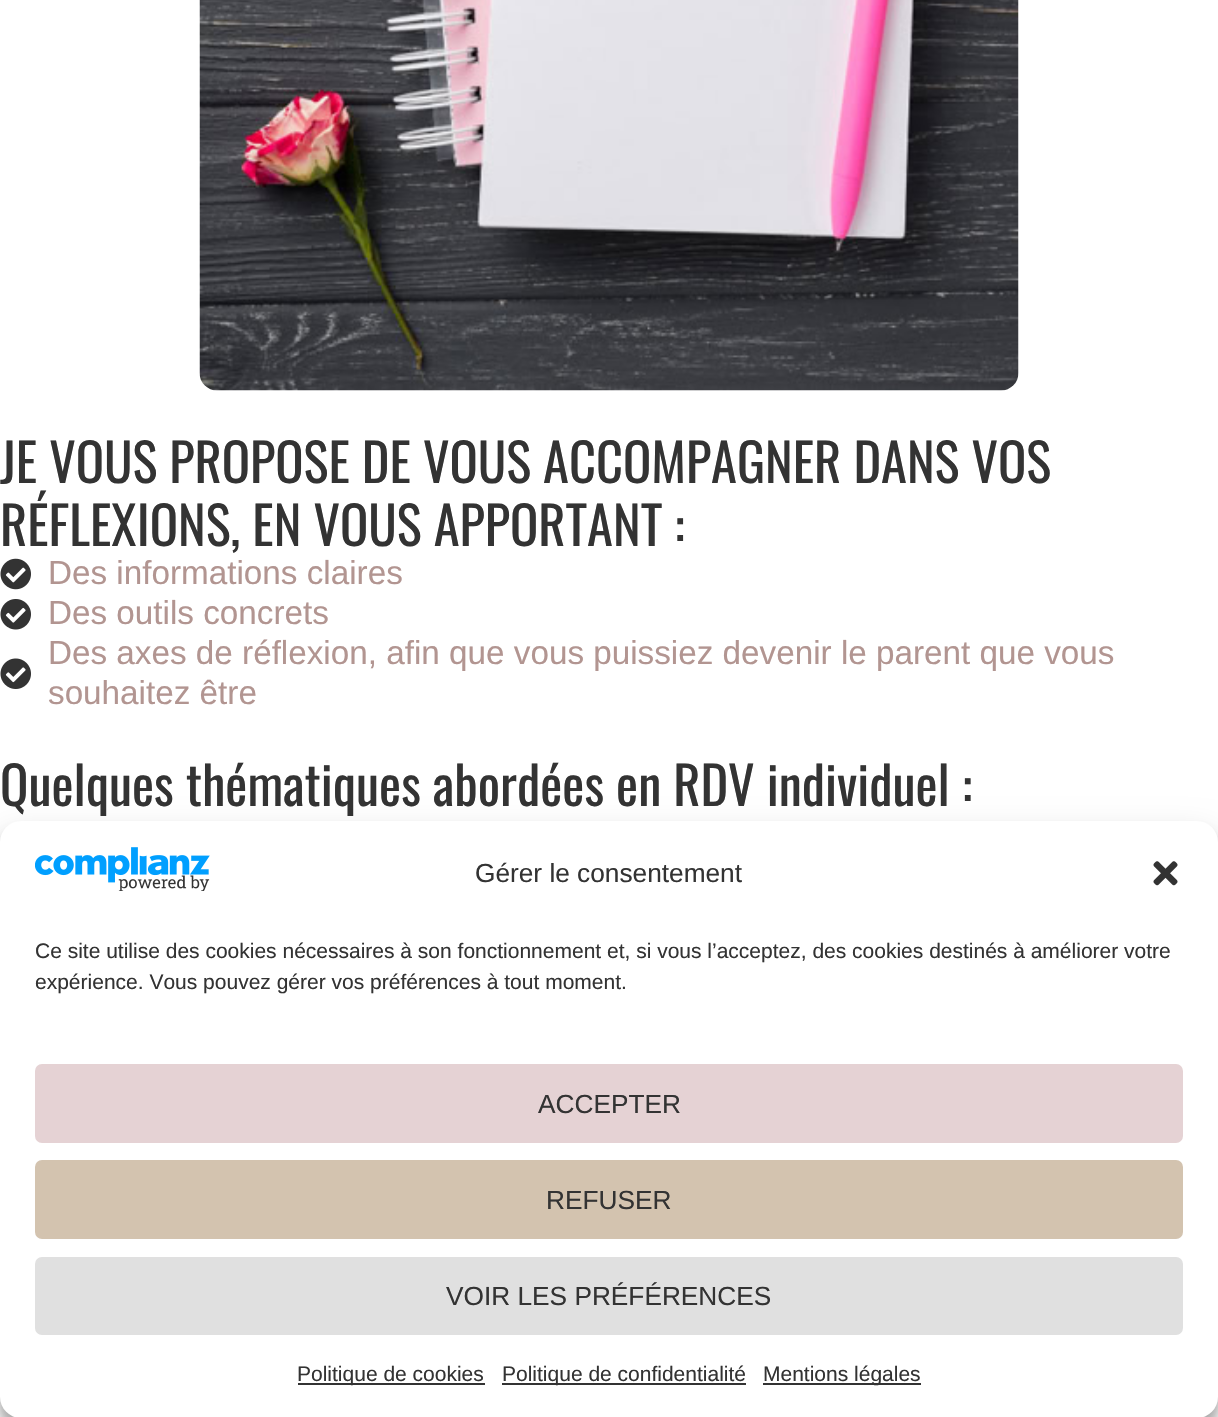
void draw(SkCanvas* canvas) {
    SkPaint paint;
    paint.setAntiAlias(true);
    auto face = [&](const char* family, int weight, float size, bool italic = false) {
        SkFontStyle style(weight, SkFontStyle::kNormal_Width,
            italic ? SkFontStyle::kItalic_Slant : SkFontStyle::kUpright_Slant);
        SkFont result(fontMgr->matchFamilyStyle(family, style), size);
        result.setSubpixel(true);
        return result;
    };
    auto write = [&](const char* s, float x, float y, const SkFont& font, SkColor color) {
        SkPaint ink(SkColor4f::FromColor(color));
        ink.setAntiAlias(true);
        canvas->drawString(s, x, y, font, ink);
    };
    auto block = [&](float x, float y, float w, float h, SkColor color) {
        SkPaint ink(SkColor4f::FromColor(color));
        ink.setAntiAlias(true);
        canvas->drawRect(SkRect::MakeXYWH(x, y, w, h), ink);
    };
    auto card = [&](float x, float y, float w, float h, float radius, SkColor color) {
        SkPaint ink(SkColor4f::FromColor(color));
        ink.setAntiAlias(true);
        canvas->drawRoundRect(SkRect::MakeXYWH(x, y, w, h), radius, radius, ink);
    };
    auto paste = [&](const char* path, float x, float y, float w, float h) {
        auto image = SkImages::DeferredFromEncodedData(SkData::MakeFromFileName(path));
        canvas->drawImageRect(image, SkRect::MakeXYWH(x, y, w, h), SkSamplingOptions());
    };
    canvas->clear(SK_ColorWHITE);
    paste("pic1.png", 199, 0, 820, 391);
    auto kFont1 = face("Oswald", 400, 52.5f);
    write("JE VOUS PROPOSE DE VOUS ACCOMPAGNER DANS VOS", 0, 483, kFont1, SkColorSetRGB(51, 51, 51));
    write("RÉFLEXIONS, EN VOUS APPORTANT :", 0, 546, kFont1, SkColorSetRGB(51, 51, 51));
    paste("pic2.png", 0, 558, 31, 32);
    auto kFont2 = face("Liberation Sans", 400, 33.25f);
    write("Des informations claires", 48, 584, kFont2, SkColorSetRGB(178, 149, 145));
    paste("pic3.png", 0, 599, 31, 31);
    write("Des outils concrets", 48, 624, kFont2, SkColorSetRGB(178, 149, 145));
    paste("pic4.png", 0, 658, 31, 31);
    write("Des axes de réflexion, afin que vous puissiez devenir le parent que vous", 48, 664, kFont2, SkColorSetRGB(178, 149, 145));
    write("souhaitez être", 48, 704, kFont2, SkColorSetRGB(178, 149, 145));
    write("Quelques thématiques abordées en RDV individuel :", 0, 806, kFont1, SkColorSetRGB(51, 51, 51));
    paint.setColor(SkColorSetARGB(59, 0, 0, 0));
    paint.setMaskFilter(SkMaskFilter::MakeBlur(kNormal_SkBlurStyle, 5));
    canvas->drawRoundRect(SkRect::MakeXYWH(0, 831, 1218, 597), 21, 21, paint);
    paint.setMaskFilter(nullptr);
    paint.setColor(SkColorSetARGB(48, 0, 0, 0));
    paint.setMaskFilter(SkMaskFilter::MakeBlur(kNormal_SkBlurStyle, 17.5f));
    canvas->drawRoundRect(SkRect::MakeXYWH(0, 838, 1218, 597), 21, 21, paint);
    paint.setMaskFilter(nullptr);
    card(0, 821, 1218, 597, 21, SK_ColorWHITE);
    paste("pic5.png", 35, 847, 175, 44);
    auto kFont3 = face("Liberation Sans", 400, 26.25f);
    write("Gérer le consentement", 475, 882, kFont3, SkColorSetRGB(51, 51, 51));
    paste("pic6.png", 1153, 861, 25, 25);
    auto kFont4 = face("Liberation Sans", 400, 21);
    write("Ce site utilise des cookies nécessaires à son fonctionnement et, si vous l’acceptez, des cookies destinés à améliorer votre", 35, 958, kFont4, SkColorSetRGB(51, 51, 51));
    write("expérience. Vous pouvez gérer vos préférences à tout moment.", 35, 989, kFont4, SkColorSetRGB(51, 51, 51));
    paint.setColor(SkColorSetRGB(229, 210, 212));
    canvas->drawRoundRect(SkRect::MakeXYWH(36, 1065, 1146, 77), 6, 6, paint);
    paint.setStyle(SkPaint::kStroke_Style);
    paint.setStrokeWidth(2);
    canvas->drawRoundRect(SkRect::MakeXYWH(36, 1065, 1146, 77), 6, 6, paint);
    write("ACCEPTER", 538, 1113, kFont3, SkColorSetRGB(51, 51, 51));
    paint.setStyle(SkPaint::kFill_Style);
    paint.setColor(SkColorSetRGB(211, 195, 175));
    canvas->drawRoundRect(SkRect::MakeXYWH(36, 1161, 1146, 77), 6, 6, paint);
    paint.setStyle(SkPaint::kStroke_Style);
    canvas->drawRoundRect(SkRect::MakeXYWH(36, 1161, 1146, 77), 6, 6, paint);
    write("REFUSER", 546, 1209, kFont3, SkColorSetRGB(51, 51, 51));
    paint.setStyle(SkPaint::kFill_Style);
    paint.setColor(SkColorSetRGB(224, 224, 224));
    canvas->drawRoundRect(SkRect::MakeXYWH(36, 1258, 1146, 76), 6, 6, paint);
    paint.setStyle(SkPaint::kStroke_Style);
    canvas->drawRoundRect(SkRect::MakeXYWH(36, 1258, 1146, 76), 6, 6, paint);
    write("VOIR LES PRÉFÉRENCES", 446, 1305, kFont3, SkColorSetRGB(51, 51, 51));
    block(298, 1383, 187, 2, SkColorSetRGB(51, 51, 51));
    write("Politique de cookies", 297, 1381, kFont4, SkColorSetRGB(51, 51, 51));
    block(502, 1383, 244, 2, SkColorSetRGB(51, 51, 51));
    write("Politique de confidentialité", 502, 1381, kFont4, SkColorSetRGB(51, 51, 51));
    block(763, 1383, 158, 2, SkColorSetRGB(51, 51, 51));
    write("Mentions légales", 763, 1381, kFont4, SkColorSetRGB(51, 51, 51));
}
